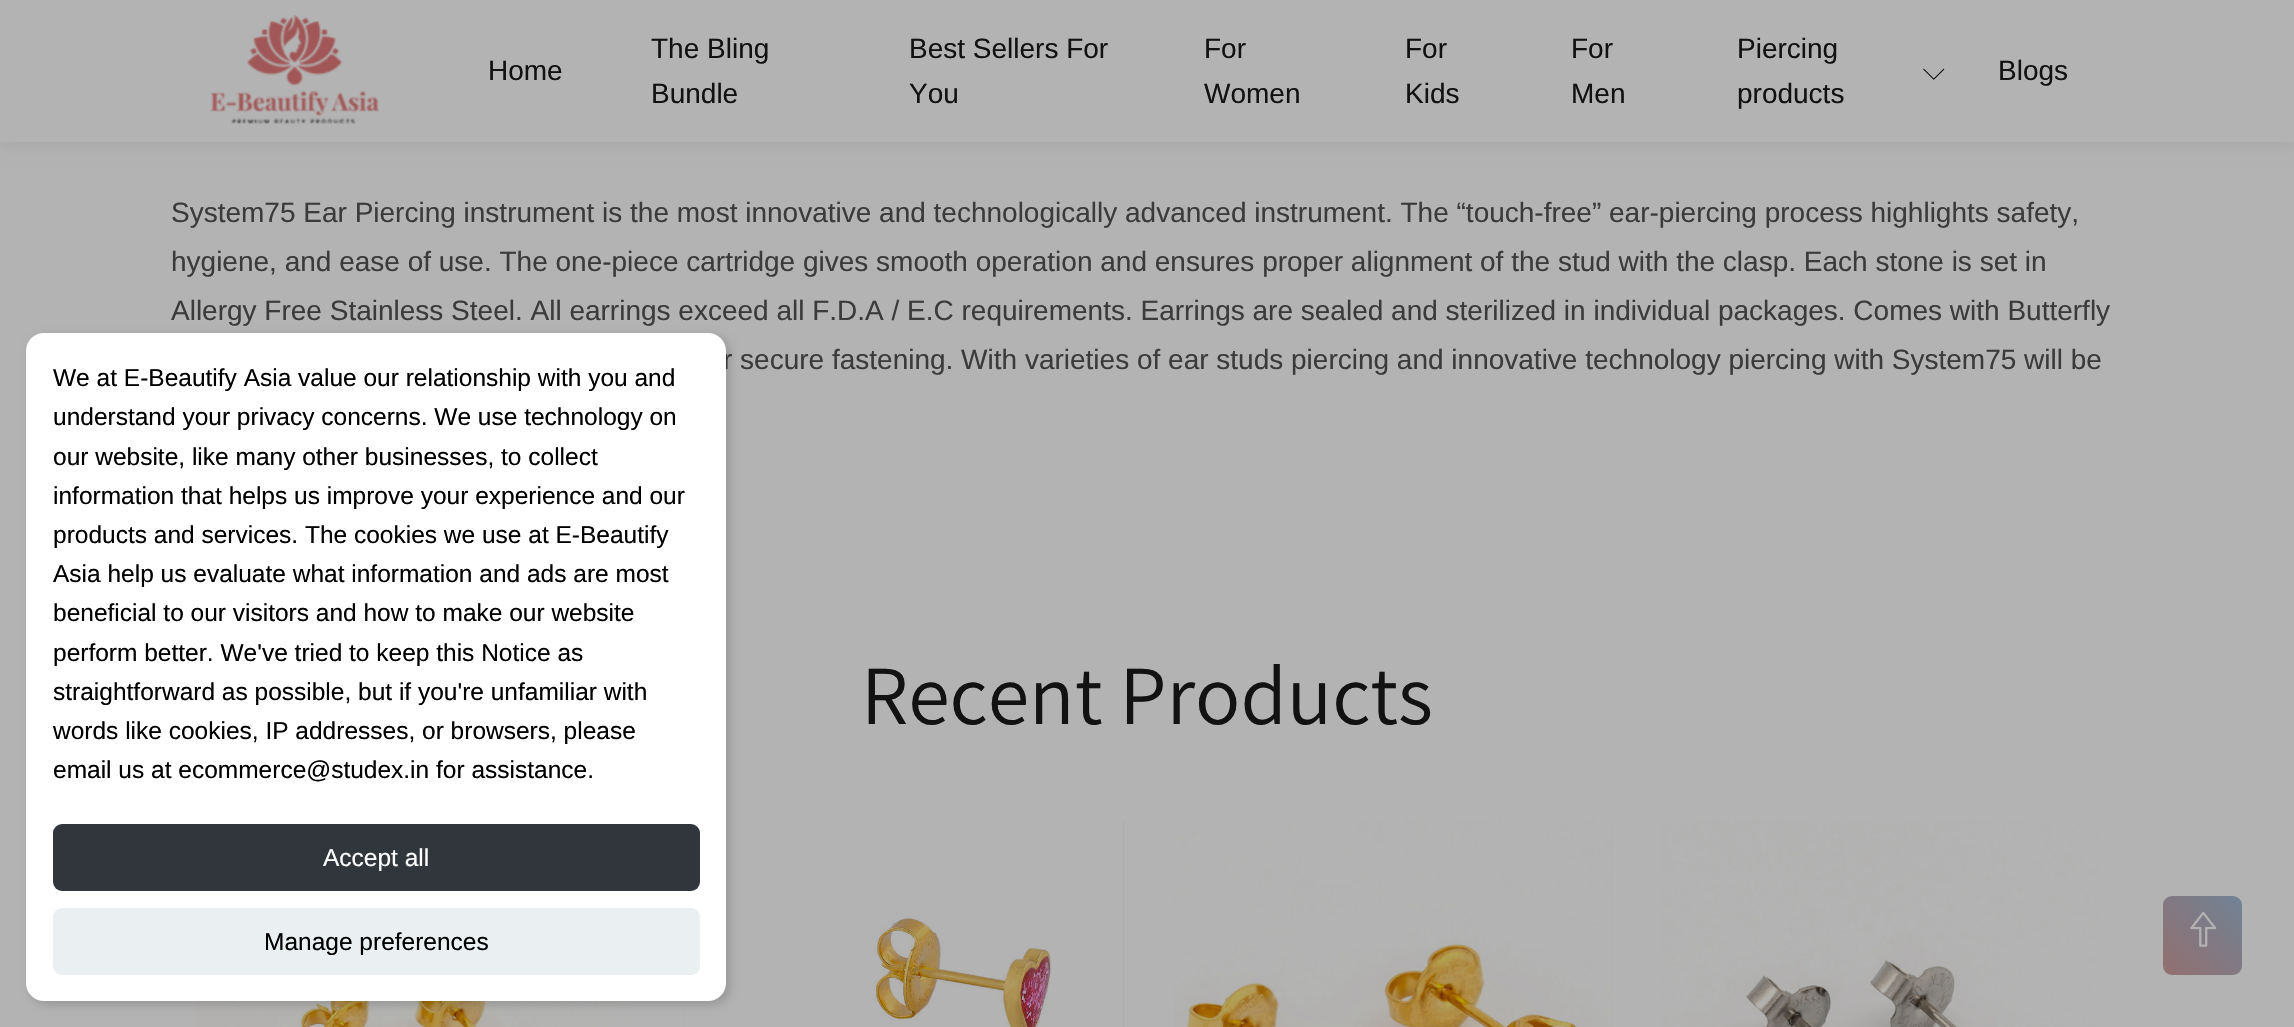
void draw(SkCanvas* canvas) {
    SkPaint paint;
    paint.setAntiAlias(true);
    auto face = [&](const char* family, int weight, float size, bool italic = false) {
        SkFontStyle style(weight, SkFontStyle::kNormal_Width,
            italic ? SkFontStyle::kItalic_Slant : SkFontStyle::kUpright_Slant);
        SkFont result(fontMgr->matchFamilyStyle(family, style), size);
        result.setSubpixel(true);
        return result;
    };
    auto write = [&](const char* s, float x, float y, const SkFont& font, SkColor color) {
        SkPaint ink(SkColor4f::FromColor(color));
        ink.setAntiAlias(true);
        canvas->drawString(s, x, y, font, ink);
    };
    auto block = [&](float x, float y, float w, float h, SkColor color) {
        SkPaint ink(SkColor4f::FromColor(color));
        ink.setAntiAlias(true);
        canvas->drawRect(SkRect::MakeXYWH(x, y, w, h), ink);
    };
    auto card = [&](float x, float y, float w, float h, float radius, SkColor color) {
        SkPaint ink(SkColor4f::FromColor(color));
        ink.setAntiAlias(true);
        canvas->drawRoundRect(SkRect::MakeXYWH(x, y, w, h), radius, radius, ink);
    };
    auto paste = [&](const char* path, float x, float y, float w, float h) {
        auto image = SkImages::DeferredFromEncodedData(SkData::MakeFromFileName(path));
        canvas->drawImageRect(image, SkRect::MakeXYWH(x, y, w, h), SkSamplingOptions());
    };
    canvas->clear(SkColorSetRGB(179, 179, 179));
    paint.setColor(SkColorSetARGB(26, 0, 0, 0));
    paint.setMaskFilter(SkMaskFilter::MakeBlur(kNormal_SkBlurStyle, 9));
    canvas->drawRect(SkRect::MakeXYWH(0, 0, 2294, 142), paint);
    paint.setMaskFilter(nullptr);
    block(0, 0, 2294, 142, SkColorSetRGB(179, 179, 179));
    paste("pic1.png", 210, 14, 170, 110);
    auto kFont1 = face("Arimo", 400, 28);
    write("Home", 488, 80, kFont1, SkColorSetRGB(18, 18, 18));
    write("The Bling", 651, 58, kFont1, SkColorSetRGB(18, 18, 18));
    write("Bundle", 651, 103, kFont1, SkColorSetRGB(18, 18, 18));
    write("Best Sellers For", 909, 58, kFont1, SkColorSetRGB(18, 18, 18));
    write("You", 909, 103, kFont1, SkColorSetRGB(18, 18, 18));
    write("For", 1204, 58, kFont1, SkColorSetRGB(18, 18, 18));
    write("Women", 1204, 103, kFont1, SkColorSetRGB(18, 18, 18));
    write("For", 1405, 58, kFont1, SkColorSetRGB(18, 18, 18));
    write("Kids", 1405, 103, kFont1, SkColorSetRGB(18, 18, 18));
    write("For", 1571, 58, kFont1, SkColorSetRGB(18, 18, 18));
    write("Men", 1571, 103, kFont1, SkColorSetRGB(18, 18, 18));
    write("Piercing", 1737, 58, kFont1, SkColorSetRGB(18, 18, 18));
    write("products", 1737, 103, kFont1, SkColorSetRGB(18, 18, 18));
    paste("pic2.png", 1923, 68, 22, 12);
    write("Blogs", 1998, 80, kFont1, SkColorSetRGB(18, 18, 18));
    write("System75 Ear Piercing instrument is the most innovative and technologically advanced instrument. The “touch-free” ear-piercing process highlights safety,", 171, 222, kFont1, SkColorSetRGB(59, 59, 59));
    write("hygiene, and ease of use. The one-piece cartridge gives smooth operation and ensures proper alignment of the stud with the clasp. Each stone is set in", 171, 271, kFont1, SkColorSetRGB(59, 59, 59));
    write("Allergy Free Stainless Steel. All earrings exceed all F.D.A / E.C requirements. Earrings are sealed and sterilized in individual packages. Comes with Butterfly", 171, 320, kFont1, SkColorSetRGB(59, 59, 59));
    write("r secure fastening. With varieties of ear studs piercing and innovative technology piercing with System75 will be", 723, 369, kFont1, SkColorSetRGB(59, 59, 59));
    auto kFont2 = face("Assistant", 400, 84);
    write("Recent Products", 861, 724, kFont2, SkColorSetRGB(18, 18, 18));
    paste("pic3.png", 196, 1001, 439, 26);
    block(684, 819, 440, 208, SkColorSetRGB(173, 173, 173));
    paste("pic4.png", 684, 819, 439, 208);
    block(1611, 819, 1, 208, SkColorSetRGB(173, 173, 173));
    paste("pic5.png", 1173, 819, 439, 208);
    paste("pic6.png", 1661, 819, 439, 208);
    paint.setColor(SkColorSetARGB(38, 0, 0, 0));
    paint.setMaskFilter(SkMaskFilter::MakeBlur(kNormal_SkBlurStyle, 5));
    canvas->drawRoundRect(SkRect::MakeXYWH(30, 336, 700, 669), 18, 18, paint);
    paint.setMaskFilter(nullptr);
    card(26, 333, 700, 668, 18, SK_ColorWHITE);
    auto kFont3 = face("Arimo", 400, 24.5f);
    write("We at E-Beautify Asia value our relationship with you and", 53, 386, kFont3, SK_ColorBLACK);
    write("understand your privacy concerns. We use technology on", 53, 425, kFont3, SK_ColorBLACK);
    write("our website, like many other businesses, to collect", 53, 465, kFont3, SK_ColorBLACK);
    write("information that helps us improve your experience and our", 53, 504, kFont3, SK_ColorBLACK);
    write("products and services. The cookies we use at E-Beautify", 53, 543, kFont3, SK_ColorBLACK);
    write("Asia help us evaluate what information and ads are most", 53, 582, kFont3, SK_ColorBLACK);
    write("beneficial to our visitors and how to make our website", 53, 621, kFont3, SK_ColorBLACK);
    write("perform better. We've tried to keep this Notice as", 53, 661, kFont3, SK_ColorBLACK);
    write("straightforward as possible, but if you're unfamiliar with", 53, 700, kFont3, SK_ColorBLACK);
    write("words like cookies, IP addresses, or browsers, please", 53, 739, kFont3, SK_ColorBLACK);
    write("email us at ecommerce@studex.in for assistance.", 53, 778, kFont3, SK_ColorBLACK);
    card(53, 824, 647, 67, 9, SkColorSetRGB(48, 54, 60));
    write("Accept all", 323, 866, kFont3, SK_ColorWHITE);
    card(53, 908, 647, 67, 9, SkColorSetRGB(234, 239, 242));
    write("Manage preferences", 264, 950, kFont3, SK_ColorBLACK);
    {
        const SkColor colors[] = {SkColorSetRGB(146, 111, 111), SkColorSetRGB(113, 131, 149)};
        const float stops[] = {0, 1};
        const SkPoint ends[] = {{2163, 975}, {2242, 896}};
        paint.setShader(SkGradientShader::MakeLinear(ends, colors, stops, 2, SkTileMode::kClamp));
        paint.setAlpha(255);
    }
    canvas->drawRoundRect(SkRect::MakeXYWH(2163, 896, 79, 79), 9, 9, paint);
    paste("pic7.png", 2190, 911, 27, 36);
}
